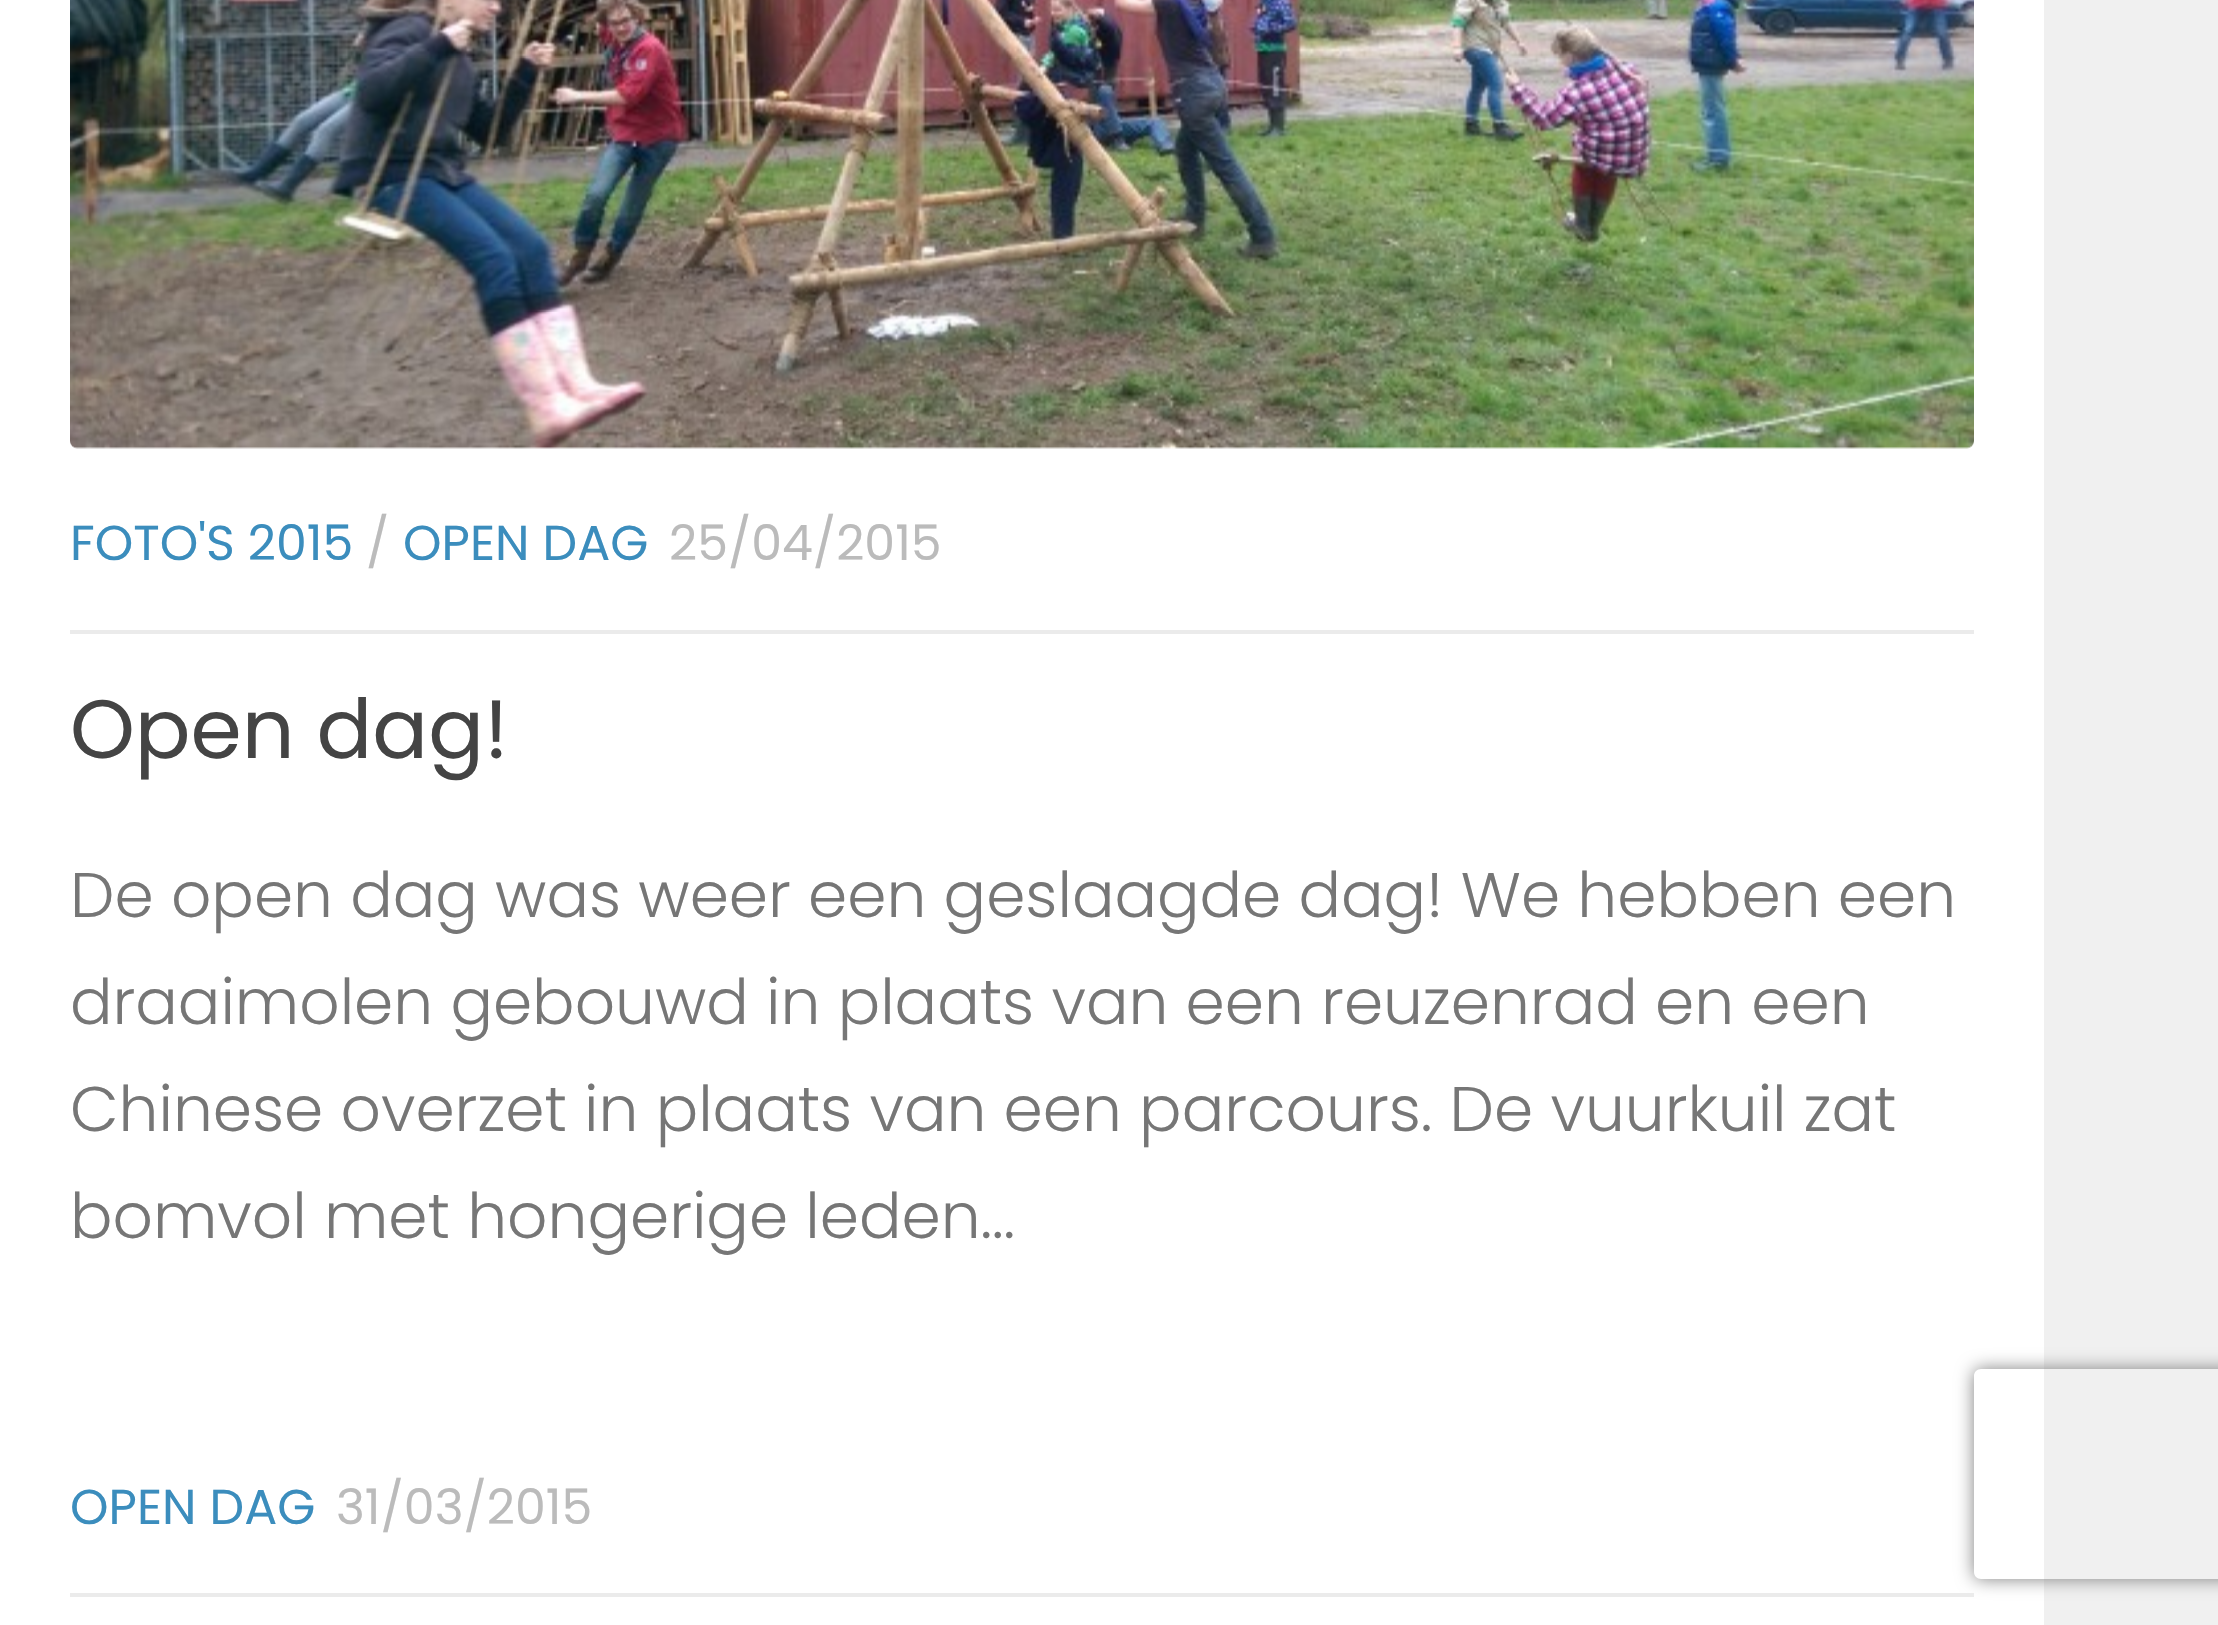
void draw(SkCanvas* canvas) {
    SkPaint paint;
    paint.setAntiAlias(true);
    auto face = [&](const char* family, int weight, float size, bool italic = false) {
        SkFontStyle style(weight, SkFontStyle::kNormal_Width,
            italic ? SkFontStyle::kItalic_Slant : SkFontStyle::kUpright_Slant);
        SkFont result(fontMgr->matchFamilyStyle(family, style), size);
        result.setSubpixel(true);
        return result;
    };
    auto write = [&](const char* s, float x, float y, const SkFont& font, SkColor color) {
        SkPaint ink(SkColor4f::FromColor(color));
        ink.setAntiAlias(true);
        canvas->drawString(s, x, y, font, ink);
    };
    auto block = [&](float x, float y, float w, float h, SkColor color) {
        SkPaint ink(SkColor4f::FromColor(color));
        ink.setAntiAlias(true);
        canvas->drawRect(SkRect::MakeXYWH(x, y, w, h), ink);
    };
    auto paste = [&](const char* path, float x, float y, float w, float h) {
        auto image = SkImages::DeferredFromEncodedData(SkData::MakeFromFileName(path));
        canvas->drawImageRect(image, SkRect::MakeXYWH(x, y, w, h), SkSamplingOptions());
    };
    canvas->clear(SK_ColorWHITE);
    paste("pic1.png", 70, 0, 1904, 449);
    auto kFont1 = face("Poppins", 400, 49);
    write("FOTO'S 2015", 70, 560, kFont1, SkColorSetRGB(59, 141, 189));
    write("/", 366, 560, kFont1, SkColorSetRGB(187, 187, 187));
    write("OPEN DAG", 403, 560, kFont1, SkColorSetRGB(59, 141, 189));
    write("25/04/2015", 669, 560, kFont1, SkColorSetRGB(187, 187, 187));
    block(70, 630, 1904, 4, SkColorSetRGB(235, 235, 235));
    auto kFont2 = face("Poppins", 400, 82.5f);
    write("Open dag!", 70, 758, kFont2, SkColorSetRGB(68, 68, 68));
    auto kFont3 = face("Poppins", 300, 63);
    write("De open dag was weer een geslaagde dag! We hebben een", 70, 917, kFont3, SkColorSetRGB(118, 118, 118));
    write("draaimolen gebouwd in plaats van een reuzenrad en een", 70, 1024, kFont3, SkColorSetRGB(118, 118, 118));
    write("Chinese overzet in plaats van een parcours. De vuurkuil zat", 70, 1131, kFont3, SkColorSetRGB(118, 118, 118));
    write("bomvol met hongerige leden...", 70, 1238, kFont3, SkColorSetRGB(118, 118, 118));
    write("OPEN DAG", 70, 1524, kFont1, SkColorSetRGB(59, 141, 189));
    write("31/03/2015", 336, 1524, kFont1, SkColorSetRGB(187, 187, 187));
    block(2044, 0, 174, 1625, SkColorSetRGB(240, 240, 240));
    canvas->save();
    canvas->clipPath(SkPathBuilder(SkPathFillType::kEvenOdd).moveTo(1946, 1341).lineTo(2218, 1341).lineTo(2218, 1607).lineTo(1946, 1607).close().moveTo(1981, 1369).lineTo(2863, 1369).cubicTo(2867, 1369, 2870, 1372, 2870, 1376).lineTo(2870, 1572).cubicTo(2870, 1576, 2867, 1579, 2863, 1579).lineTo(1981, 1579).cubicTo(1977, 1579, 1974, 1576, 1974, 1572).lineTo(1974, 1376).cubicTo(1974, 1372, 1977, 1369, 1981, 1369).close().detach(), true);
    paint.setColor(SkColorSetRGB(128, 128, 128));
    paint.setMaskFilter(SkMaskFilter::MakeBlur(kNormal_SkBlurStyle, 9));
    canvas->drawRoundRect(SkRect::MakeXYWH(1974, 1369, 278, 210), 7, 7, paint);
    paint.setMaskFilter(nullptr);
    canvas->restore();
    block(70, 1593, 1904, 4, SkColorSetRGB(235, 235, 235));
}
